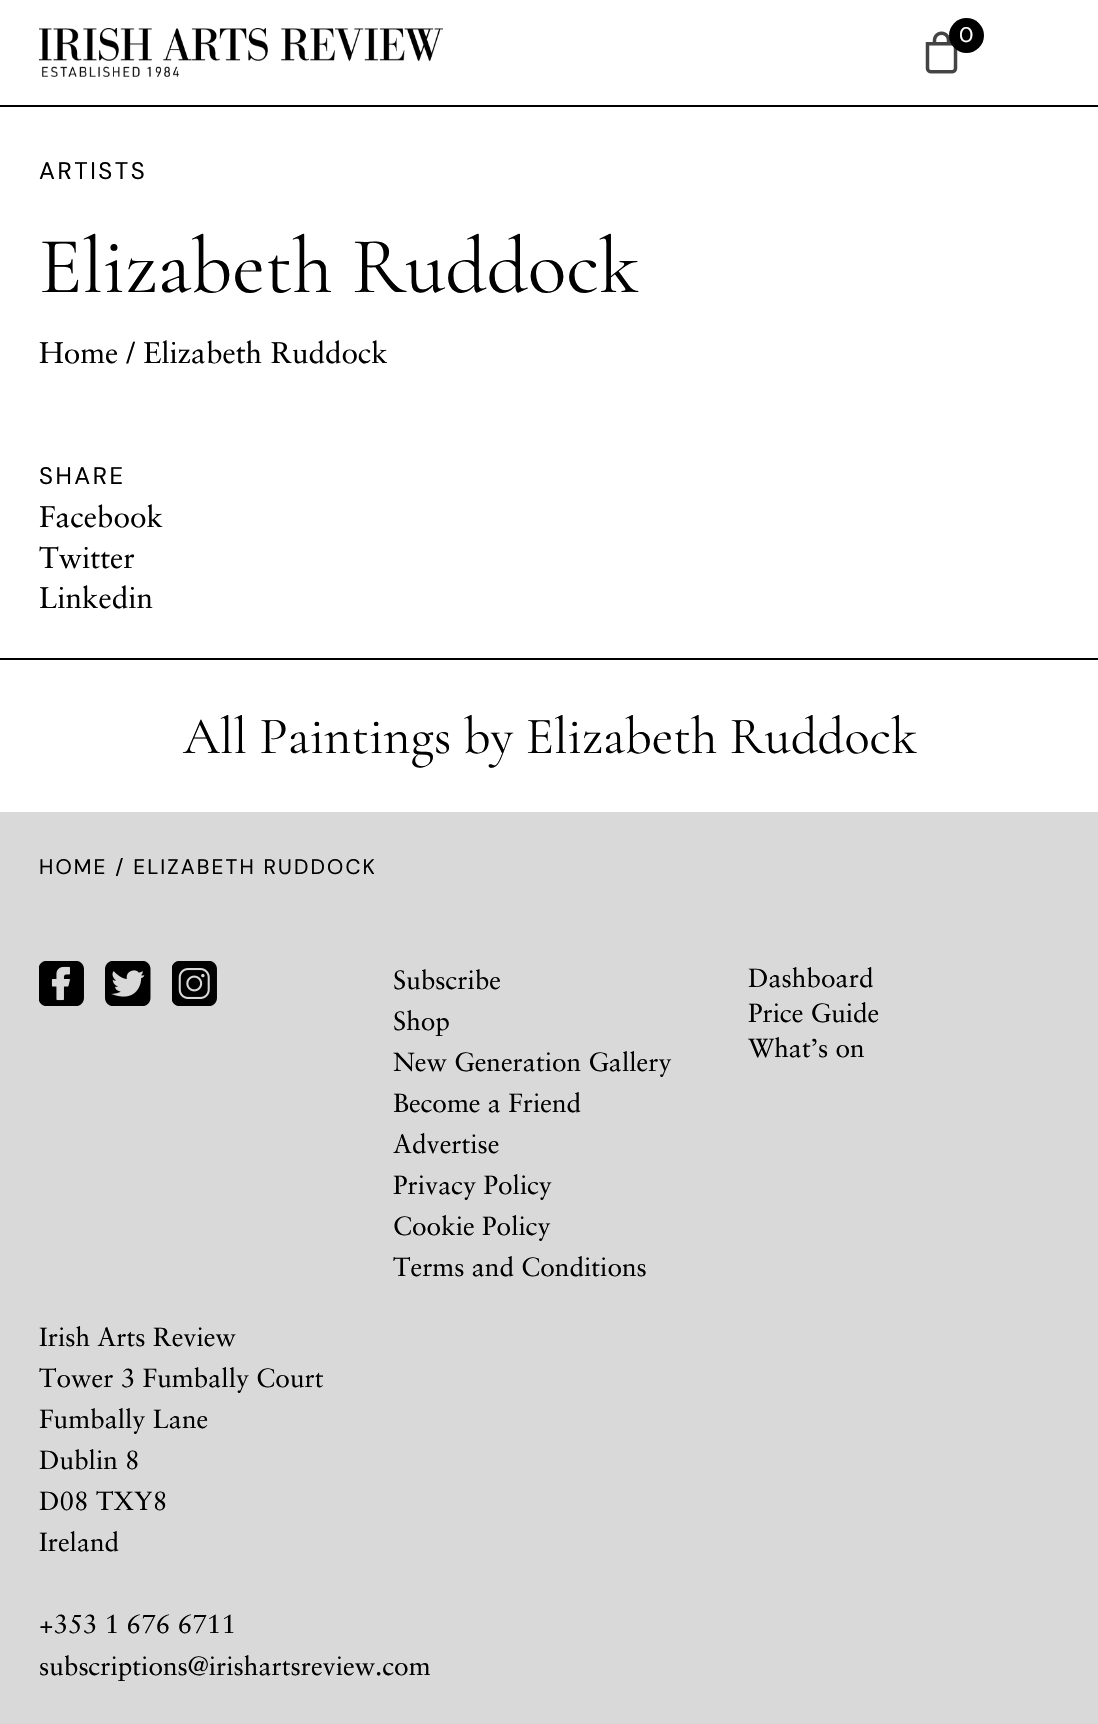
void draw(SkCanvas* canvas) {
    SkPaint paint;
    paint.setAntiAlias(true);
    auto face = [&](const char* family, int weight, float size, bool italic = false) {
        SkFontStyle style(weight, SkFontStyle::kNormal_Width,
            italic ? SkFontStyle::kItalic_Slant : SkFontStyle::kUpright_Slant);
        SkFont result(fontMgr->matchFamilyStyle(family, style), size);
        result.setSubpixel(true);
        return result;
    };
    auto write = [&](const char* s, float x, float y, const SkFont& font, SkColor color) {
        SkPaint ink(SkColor4f::FromColor(color));
        ink.setAntiAlias(true);
        canvas->drawString(s, x, y, font, ink);
    };
    auto writeSpaced = [&](const char* s, float x, float y, const SkFont& font, const SkPaint& ink, float letter, float word) {
        std::vector<SkGlyphID> glyphs(font.countText(s, strlen(s), SkTextEncoding::kUTF8));
        std::vector<float> xs(glyphs.size());
        font.textToGlyphs(s, strlen(s), SkTextEncoding::kUTF8, glyphs);
        font.getXPos(glyphs, xs, x);
        float extra = 0;
        for (size_t i = 0; i < glyphs.size(); i++) {
            xs[i] += extra;
            extra += letter + word * (glyphs[i] == font.unicharToGlyph(' '));
        }
        canvas->drawTextBlob(SkTextBlob::MakeFromPosHGlyphs(glyphs, xs, y, font), 0, 0, ink);
    };
    auto block = [&](float x, float y, float w, float h, SkColor color) {
        SkPaint ink(SkColor4f::FromColor(color));
        ink.setAntiAlias(true);
        canvas->drawRect(SkRect::MakeXYWH(x, y, w, h), ink);
    };
    auto paste = [&](const char* path, float x, float y, float w, float h) {
        auto image = SkImages::DeferredFromEncodedData(SkData::MakeFromFileName(path));
        canvas->drawImageRect(image, SkRect::MakeXYWH(x, y, w, h), SkSamplingOptions());
    };
    canvas->clear(SK_ColorWHITE);
    paste("pic1.png", 925, 31, 33, 43);
    paint.setColor(SK_ColorBLACK);
    canvas->drawCircle(966.5f, 35.5f, 17.5f, paint);
    auto kFont1 = face("DM Sans", 400, 21);
    write("0", 959, 42, kFont1, SK_ColorWHITE);
    block(0, 105, 1098, 2, SK_ColorBLACK);
    paste("pic2.png", 39, 28, 404, 49);
    auto kFont2 = face("DM Sans", 400, 24);
    writeSpaced("ARTISTS", 39, 179, kFont2, paint, 2.5f, 0);
    auto kFont3 = face("Cormorant Garamond", 300, 80.5f);
    write("Elizabeth Ruddock", 39, 292, kFont3, SK_ColorBLACK);
    auto kFont4 = face("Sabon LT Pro", 400, 29.75f);
    write("Home / Elizabeth Ruddock", 39, 363, kFont4, SK_ColorBLACK);
    writeSpaced("SHARE", 39, 484, kFont2, paint, 2.5f, 0);
    write("Facebook", 39, 527, kFont4, SK_ColorBLACK);
    write("Twitter", 39, 568, kFont4, SK_ColorBLACK);
    write("Linkedin", 39, 608, kFont4, SK_ColorBLACK);
    block(0, 658, 1098, 2, SK_ColorBLACK);
    auto kFont5 = face("Cormorant Garamond", 300, 52.5f);
    write("All Paintings by Elizabeth Ruddock", 183, 753, kFont5, SK_ColorBLACK);
    block(0, 812, 1098, 912, SkColorSetRGB(217, 217, 217));
    writeSpaced("HOME / ELIZABETH RUDDOCK", 39, 874, kFont1, paint, 2.1f, 0);
    paste("pic3.png", 39, 961, 45, 45);
    paste("pic4.png", 105, 961, 46, 45);
    paste("pic5.png", 172, 961, 45, 45);
    auto kFont6 = face("Sabon LT Pro", 400, 26.25f);
    write("Subscribe", 393, 989, kFont6, SK_ColorBLACK);
    write("Shop", 393, 1030, kFont6, SK_ColorBLACK);
    write("New Generation Gallery", 393, 1071, kFont6, SK_ColorBLACK);
    write("Become a Friend", 393, 1112, kFont6, SK_ColorBLACK);
    write("Advertise", 393, 1153, kFont6, SK_ColorBLACK);
    write("Privacy Policy", 393, 1194, kFont6, SK_ColorBLACK);
    write("Cookie Policy", 393, 1235, kFont6, SK_ColorBLACK);
    write("Terms and Conditions", 393, 1276, kFont6, SK_ColorBLACK);
    write("Dashboard", 748, 987, kFont6, SK_ColorBLACK);
    write("Price Guide", 748, 1022, kFont6, SK_ColorBLACK);
    write("What’s on", 748, 1057, kFont6, SK_ColorBLACK);
    write("Irish Arts Review", 39, 1346, kFont6, SK_ColorBLACK);
    write("Tower 3 Fumbally Court", 39, 1387, kFont6, SK_ColorBLACK);
    write("Fumbally Lane", 39, 1428, kFont6, SK_ColorBLACK);
    write("Dublin 8", 39, 1469, kFont6, SK_ColorBLACK);
    write("D08 TXY8", 39, 1510, kFont6, SK_ColorBLACK);
    write("Ireland", 39, 1551, kFont6, SK_ColorBLACK);
    write("+353 1 676 6711", 39, 1633, kFont6, SK_ColorBLACK);
    write("subscriptions@irishartsreview.com", 39, 1675, kFont6, SK_ColorBLACK);
}
